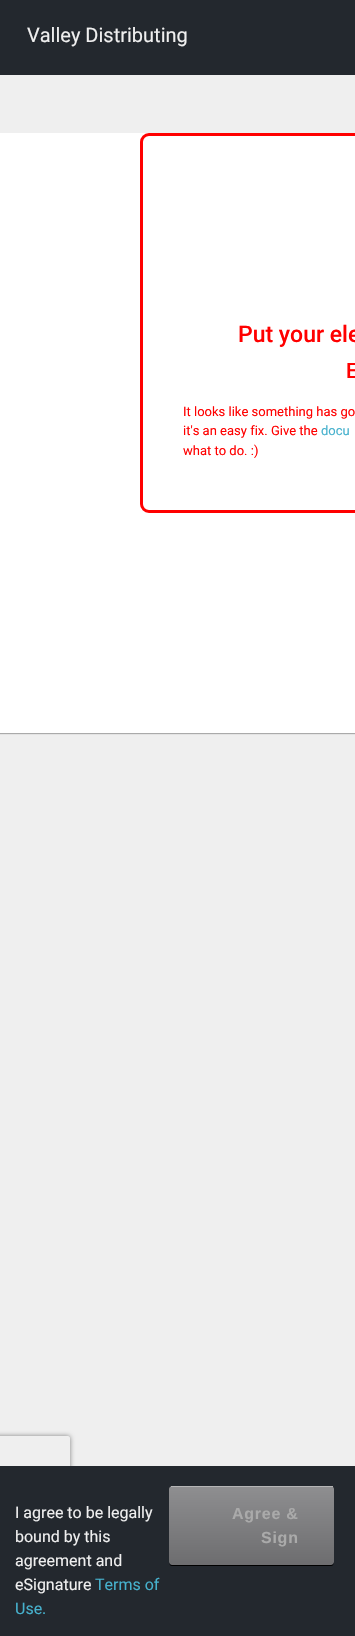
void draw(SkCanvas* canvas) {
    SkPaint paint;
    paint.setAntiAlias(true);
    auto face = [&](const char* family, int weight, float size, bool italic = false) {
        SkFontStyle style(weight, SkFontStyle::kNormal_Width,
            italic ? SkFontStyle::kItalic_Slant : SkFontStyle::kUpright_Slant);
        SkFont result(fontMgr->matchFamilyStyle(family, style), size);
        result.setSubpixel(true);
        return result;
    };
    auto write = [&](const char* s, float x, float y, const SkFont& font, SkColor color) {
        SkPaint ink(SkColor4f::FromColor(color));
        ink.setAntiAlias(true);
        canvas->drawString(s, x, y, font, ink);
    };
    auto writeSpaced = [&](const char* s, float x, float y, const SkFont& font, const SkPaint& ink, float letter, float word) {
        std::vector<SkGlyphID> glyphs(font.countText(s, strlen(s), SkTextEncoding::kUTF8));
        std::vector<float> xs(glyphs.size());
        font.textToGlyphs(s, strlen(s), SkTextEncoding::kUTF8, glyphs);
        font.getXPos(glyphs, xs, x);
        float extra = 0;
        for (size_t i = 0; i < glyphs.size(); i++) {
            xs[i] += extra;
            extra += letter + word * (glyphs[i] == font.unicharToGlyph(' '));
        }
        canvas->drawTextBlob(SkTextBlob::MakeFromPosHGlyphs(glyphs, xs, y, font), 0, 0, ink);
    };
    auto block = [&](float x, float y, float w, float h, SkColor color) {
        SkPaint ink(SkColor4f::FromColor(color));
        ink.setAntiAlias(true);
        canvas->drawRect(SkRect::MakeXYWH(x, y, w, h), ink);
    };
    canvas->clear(SkColorSetRGB(239, 239, 239));
    block(0, 0, 355, 75, SkColorSetRGB(35, 40, 46));
    auto kFont1 = face("Roboto", 400, 20);
    write("Valley Distributing", 27, 42, kFont1, SkColorSetRGB(239, 239, 239));
    paint.setColor(SkColorSetRGB(170, 170, 170));
    paint.setMaskFilter(SkMaskFilter::MakeBlur(kNormal_SkBlurStyle, 0.5f));
    canvas->drawRect(SkRect::MakeXYWH(0, 134, 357, 600), paint);
    paint.setMaskFilter(nullptr);
    block(0, 133, 355, 600, SK_ColorWHITE);
    paint.setStyle(SkPaint::kStroke_Style);
    paint.setStrokeWidth(3);
    paint.setColor(SkColorSetRGB(255, 0, 0));
    canvas->drawRoundRect(SkRect::MakeXYWH(141.5f, 134.5f, 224, 377), 7.5f, 7.5f, paint);
    auto kFont2 = face("Roboto", 500, 23);
    write("Put your ele", 238, 342, kFont2, SkColorSetRGB(255, 0, 0));
    auto kFont3 = face("Roboto", 500, 21);
    write("E", 346, 378, kFont3, SkColorSetRGB(255, 0, 0));
    auto kFont4 = face("Roboto", 400, 13);
    write("It looks like something has go", 183, 416, kFont4, SkColorSetRGB(255, 0, 0));
    write("it's an easy fix. Give the", 183, 435, kFont4, SkColorSetRGB(255, 0, 0));
    write("docu", 321, 435, kFont4, SkColorSetRGB(70, 177, 205));
    write("what to do. :)", 183, 455, kFont4, SkColorSetRGB(255, 0, 0));
    canvas->save();
    canvas->clipPath(SkPathBuilder(SkPathFillType::kEvenOdd).moveTo(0, 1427).lineTo(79, 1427).lineTo(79, 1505).lineTo(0, 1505).close().moveTo(-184, 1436).lineTo(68, 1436).cubicTo(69, 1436, 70, 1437, 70, 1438).lineTo(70, 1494).cubicTo(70, 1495, 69, 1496, 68, 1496).lineTo(-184, 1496).cubicTo(-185, 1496, -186, 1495, -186, 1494).lineTo(-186, 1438).cubicTo(-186, 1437, -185, 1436, -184, 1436).close().detach(), true);
    paint.setStyle(SkPaint::kFill_Style);
    paint.setColor(SkColorSetRGB(128, 128, 128));
    paint.setMaskFilter(SkMaskFilter::MakeBlur(kNormal_SkBlurStyle, 2.5f));
    canvas->drawRoundRect(SkRect::MakeXYWH(-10, 1436, 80, 60), 2, 2, paint);
    paint.setMaskFilter(nullptr);
    canvas->restore();
    block(0, 1466, 355, 170, SkColorSetRGB(35, 40, 46));
    auto kFont5 = face("Roboto", 400, 16);
    write("I agree to be legally", 15, 1518, kFont5, SkColorSetRGB(239, 239, 239));
    write("bound by this", 15, 1542, kFont5, SkColorSetRGB(239, 239, 239));
    write("agreement and", 15, 1566, kFont5, SkColorSetRGB(239, 239, 239));
    write("eSignature", 15, 1590, kFont5, SkColorSetRGB(239, 239, 239));
    write("Terms of", 95, 1590, kFont5, SkColorSetRGB(70, 177, 205));
    write("Use.", 15, 1614, kFont5, SkColorSetRGB(70, 177, 205));
    paint.setColor(SK_ColorBLACK);
    canvas->drawPath(SkPathBuilder().moveTo(169, 1562).cubicTo(169, 1564, 170, 1566, 172, 1566).lineTo(331, 1566).cubicTo(333, 1566, 334, 1564, 334, 1562).cubicTo(334, 1564, 333, 1565, 331, 1565).lineTo(172, 1565).cubicTo(170, 1565, 169, 1564, 169, 1562).close().detach(), paint);
    canvas->save();
    canvas->clipPath(SkPathBuilder().moveTo(172, 1486).lineTo(331, 1486).cubicTo(332.5f, 1486, 334, 1487.5f, 334, 1489).lineTo(334, 1562).cubicTo(334, 1563.5f, 332.5f, 1565, 331, 1565).lineTo(172, 1565).cubicTo(170.5f, 1565, 169, 1563.5f, 169, 1562).lineTo(169, 1489).cubicTo(169, 1487.5f, 170.5f, 1486, 172, 1486).close().detach(), true);
    {
        const SkColor colors[] = {SkColorSetRGB(142, 142, 144), SkColorSetRGB(109, 109, 111)};
        const float stops[] = {0, 1};
        const SkPoint ends[] = {{252, 1409}, {252, 1487}};
        paint.setShader(SkGradientShader::MakeLinear(ends, colors, stops, 2, SkTileMode::kClamp));
        paint.setAlpha(255);
    }
    canvas->drawRect(SkRect::MakeXYWH(169, 1486, 165, 1), paint);
    {
        const SkColor colors[] = {SkColorSetRGB(142, 142, 144), SkColorSetRGB(109, 109, 111)};
        const float stops[] = {0, 1};
        const SkPoint ends[] = {{252, 1487}, {252, 1565}};
        paint.setShader(SkGradientShader::MakeLinear(ends, colors, stops, 2, SkTileMode::kClamp));
        paint.setAlpha(255);
    }
    canvas->drawPath(SkPathBuilder().moveTo(169, 1487).lineTo(334, 1487).lineTo(334, 1562).cubicTo(334, 1563.5f, 332.5f, 1565, 331, 1565).lineTo(172, 1565).cubicTo(170.5f, 1565, 169, 1563.5f, 169, 1562).close().detach(), paint);
    canvas->restore();
    block(171, 1486, 162, 1, SkColorSetRGB(181, 181, 182));
    auto kFont6 = face("Liberation Sans", 700, 16);
    paint.setShader(nullptr);
    paint.setColor(SkColorSetRGB(170, 170, 170));
    writeSpaced("Agree &", 232, 1519, kFont6, paint, 0.75f, 0);
    writeSpaced("Sign", 261, 1543, kFont6, paint, 0.75f, 0);
}
